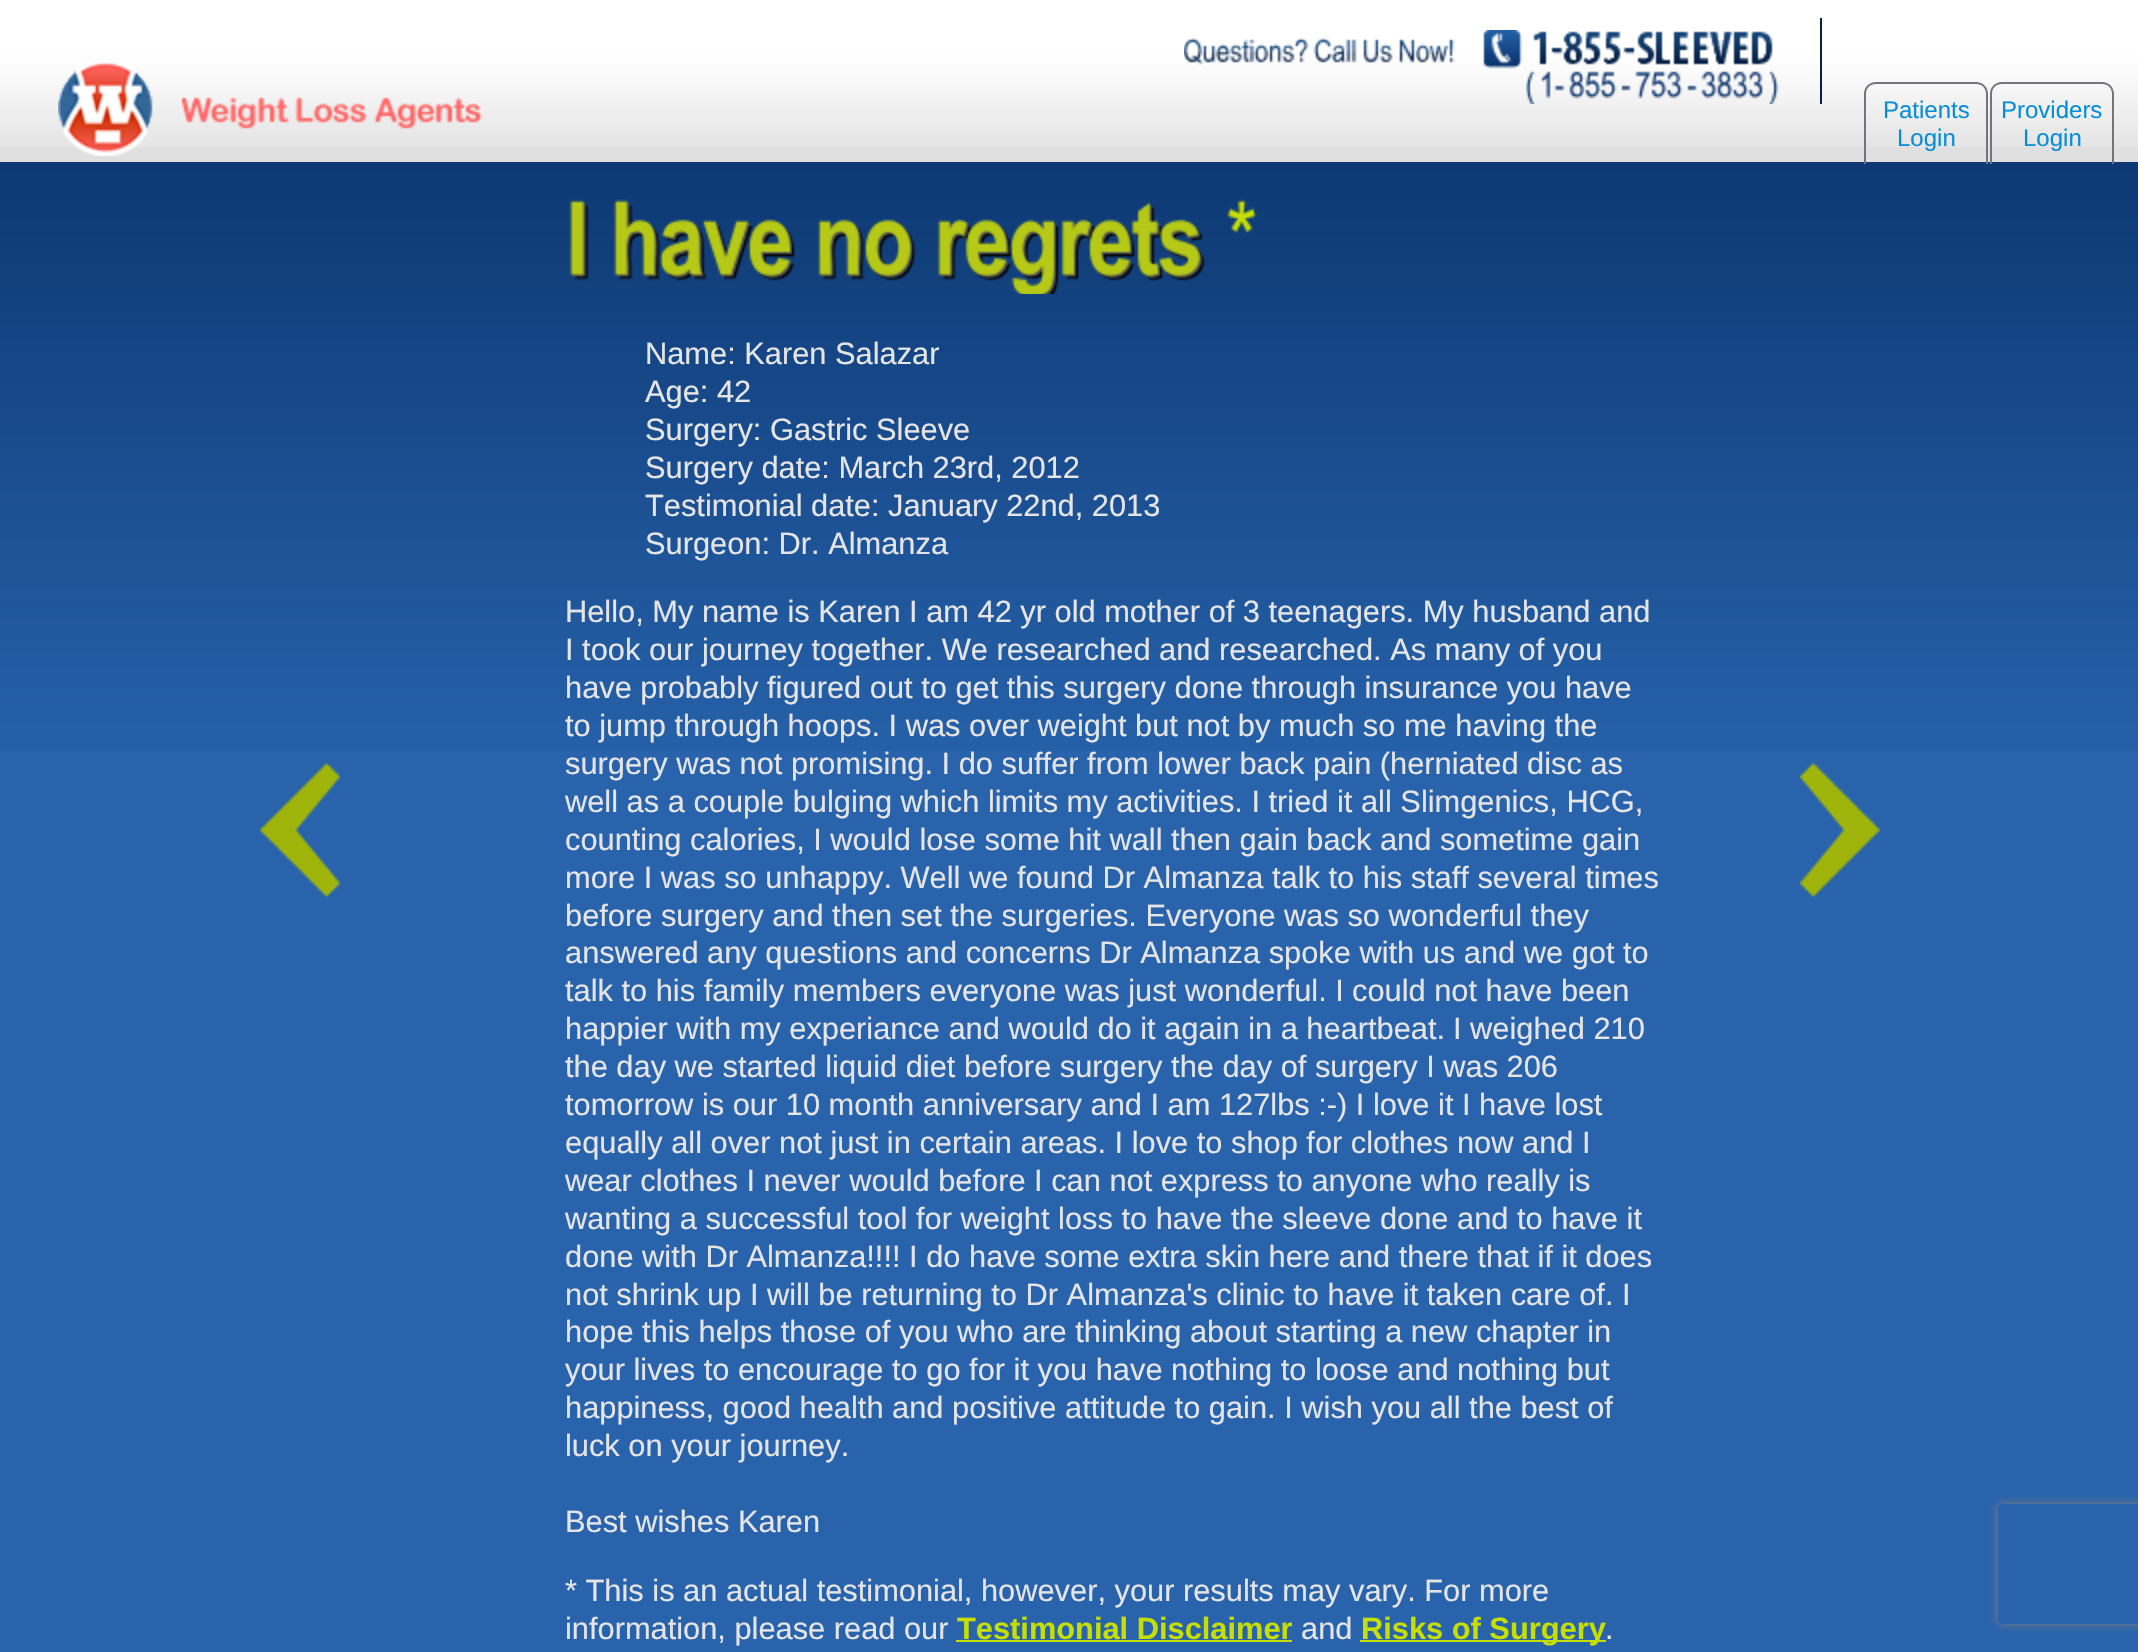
void draw(SkCanvas* canvas) {
    SkPaint paint;
    paint.setAntiAlias(true);
    auto face = [&](const char* family, int weight, float size, bool italic = false) {
        SkFontStyle style(weight, SkFontStyle::kNormal_Width,
            italic ? SkFontStyle::kItalic_Slant : SkFontStyle::kUpright_Slant);
        SkFont result(fontMgr->matchFamilyStyle(family, style), size);
        result.setSubpixel(true);
        return result;
    };
    auto write = [&](const char* s, float x, float y, const SkFont& font, SkColor color) {
        SkPaint ink(SkColor4f::FromColor(color));
        ink.setAntiAlias(true);
        canvas->drawString(s, x, y, font, ink);
    };
    auto block = [&](float x, float y, float w, float h, SkColor color) {
        SkPaint ink(SkColor4f::FromColor(color));
        ink.setAntiAlias(true);
        canvas->drawRect(SkRect::MakeXYWH(x, y, w, h), ink);
    };
    auto paste = [&](const char* path, float x, float y, float w, float h) {
        auto image = SkImages::DeferredFromEncodedData(SkData::MakeFromFileName(path));
        canvas->drawImageRect(image, SkRect::MakeXYWH(x, y, w, h), SkSamplingOptions());
    };
    canvas->clear(SkColorSetRGB(40, 99, 172));
    block(0, 147, 2138, 15, SkColorSetRGB(224, 224, 224));
    paste("pic1.png", 0, 0, 2138, 147);
    paste("pic2.png", 58, 62, 425, 94);
    block(1820, 18, 2, 86, SkColorSetRGB(6, 33, 68));
    paste("pic3.png", 1184, 38, 125, 27);
    paste("pic4.png", 1313, 38, 44, 25);
    paste("pic5.png", 1363, 39, 30, 24);
    paste("pic6.png", 1399, 39, 56, 24);
    paste("pic7.png", 1483, 30, 290, 39);
    paste("pic8.png", 1526, 71, 9, 33);
    paste("pic9.png", 1541, 71, 24, 28);
    paste("pic10.png", 1569, 71, 48, 28);
    paste("pic11.png", 1621, 85, 10, 6);
    paste("pic12.png", 1635, 71, 48, 28);
    paste("pic11.png", 1687, 85, 10, 6);
    paste("pic13.png", 1701, 71, 63, 28);
    paste("pic14.png", 1769, 71, 10, 33);
    paste("pic15.png", 0, 162, 2138, 589);
    paint.setColor(SkColorSetRGB(115, 116, 128));
    canvas->drawPath(SkPathBuilder(SkPathFillType::kEvenOdd).moveTo(1876, 82).lineTo(1976, 82).cubicTo(1983, 82, 1988, 87, 1988, 94).lineTo(1988, 164).lineTo(1864, 164).lineTo(1864, 94).cubicTo(1864, 87, 1869, 82, 1876, 82).close().moveTo(1876, 84).lineTo(1976, 84).cubicTo(1982, 84, 1986, 88, 1986, 94).lineTo(1986, 164).lineTo(1866, 164).lineTo(1866, 94).cubicTo(1866, 88, 1870, 84, 1876, 84).close().detach(), paint);
    auto kFont1 = face("Liberation Sans", 400, 24);
    write("Patients", 1883, 118, kFont1, SkColorSetRGB(8, 142, 215));
    write("Login", 1897, 146, kFont1, SkColorSetRGB(8, 142, 215));
    canvas->drawPath(SkPathBuilder(SkPathFillType::kEvenOdd).moveTo(2002, 82).lineTo(2102, 82).cubicTo(2109, 82, 2114, 87, 2114, 94).lineTo(2114, 164).lineTo(1990, 164).lineTo(1990, 94).cubicTo(1990, 87, 1995, 82, 2002, 82).close().moveTo(2002, 84).lineTo(2102, 84).cubicTo(2108, 84, 2112, 88, 2112, 94).lineTo(2112, 164).lineTo(1992, 164).lineTo(1992, 94).cubicTo(1992, 88, 1996, 84, 2002, 84).close().detach(), paint);
    write("Providers", 2001, 118, kFont1, SkColorSetRGB(8, 142, 215));
    write("Login", 2023, 146, kFont1, SkColorSetRGB(8, 142, 215));
    paste("pic16.png", 569, 199, 20, 82);
    paste("pic17.png", 613, 199, 182, 82);
    paste("pic18.png", 817, 219, 100, 62);
    paste("pic19.png", 937, 201, 268, 93);
    paste("pic20.png", 1227, 199, 30, 34);
    paste("pic21.png", 260, 762, 80, 136);
    auto kFont2 = face("Liberation Sans", 400, 30.8f);
    write("Name: Karen Salazar", 645, 364, kFont2, SkColorSetRGB(229, 229, 229));
    write("Age: 42", 645, 402, kFont2, SkColorSetRGB(229, 229, 229));
    write("Surgery: Gastric Sleeve", 645, 440, kFont2, SkColorSetRGB(229, 229, 229));
    write("Surgery date: March 23rd, 2012", 645, 478, kFont2, SkColorSetRGB(229, 229, 229));
    write("Testimonial date: January 22nd, 2013", 645, 516, kFont2, SkColorSetRGB(229, 229, 229));
    write("Surgeon: Dr. Almanza", 645, 554, kFont2, SkColorSetRGB(229, 229, 229));
    write("Hello, My name is Karen I am 42 yr old mother of 3 teenagers. My husband and", 565, 622, kFont2, SkColorSetRGB(229, 229, 229));
    write("I took our journey together. We researched and researched. As many of you", 565, 660, kFont2, SkColorSetRGB(229, 229, 229));
    write("have probably figured out to get this surgery done through insurance you have", 565, 698, kFont2, SkColorSetRGB(229, 229, 229));
    write("to jump through hoops. I was over weight but not by much so me having the", 565, 736, kFont2, SkColorSetRGB(229, 229, 229));
    write("surgery was not promising. I do suffer from lower back pain (herniated disc as", 565, 774, kFont2, SkColorSetRGB(229, 229, 229));
    write("well as a couple bulging which limits my activities. I tried it all Slimgenics, HCG,", 565, 812, kFont2, SkColorSetRGB(229, 229, 229));
    write("counting calories, I would lose some hit wall then gain back and sometime gain", 565, 850, kFont2, SkColorSetRGB(229, 229, 229));
    write("more I was so unhappy. Well we found Dr Almanza talk to his staff several times", 565, 888, kFont2, SkColorSetRGB(229, 229, 229));
    write("before surgery and then set the surgeries. Everyone was so wonderful they", 565, 926, kFont2, SkColorSetRGB(229, 229, 229));
    write("answered any questions and concerns Dr Almanza spoke with us and we got to", 565, 963, kFont2, SkColorSetRGB(229, 229, 229));
    write("talk to his family members everyone was just wonderful. I", 565, 1001, kFont2, SkColorSetRGB(229, 229, 229));
    write("could not have been", 1352, 1001, kFont2, SkColorSetRGB(229, 229, 229));
    write("happier with my experiance and would do it again in a heartbeat.", 565, 1039, kFont2, SkColorSetRGB(229, 229, 229));
    write("I weighed 210", 1453, 1039, kFont2, SkColorSetRGB(229, 229, 229));
    write("the day we started liquid diet before surgery the day of surgery I was 206", 565, 1077, kFont2, SkColorSetRGB(229, 229, 229));
    write("tomorrow is our 10 month anniversary and I am 127lbs :-) I love it I have lost", 565, 1115, kFont2, SkColorSetRGB(229, 229, 229));
    write("equally all over not just in certain areas. I love to shop for clothes now and I", 565, 1153, kFont2, SkColorSetRGB(229, 229, 229));
    write("wear clothes I never would before I can not express to anyone who really is", 565, 1191, kFont2, SkColorSetRGB(229, 229, 229));
    write("wanting a successful tool for weight loss to have the sleeve done and to have it", 565, 1229, kFont2, SkColorSetRGB(229, 229, 229));
    write("done with Dr Almanza!!!! I do have some extra skin here and there that if it does", 565, 1267, kFont2, SkColorSetRGB(229, 229, 229));
    write("not shrink up I will be returning to Dr Almanza's clinic to have it taken care of. I", 565, 1305, kFont2, SkColorSetRGB(229, 229, 229));
    write("hope this helps those of you who are thinking about starting a new chapter in", 565, 1342, kFont2, SkColorSetRGB(229, 229, 229));
    write("your lives to encourage to go for it you have nothing to loose and nothing but", 565, 1380, kFont2, SkColorSetRGB(229, 229, 229));
    write("happiness, good health and positive attitude to gain. I wish you all the best of", 565, 1418, kFont2, SkColorSetRGB(229, 229, 229));
    write("luck on your journey.", 565, 1456, kFont2, SkColorSetRGB(229, 229, 229));
    write("Best wishes Karen", 565, 1532, kFont2, SkColorSetRGB(229, 229, 229));
    write("* This is an actual testimonial, however, your results may vary. For more", 565, 1601, kFont2, SkColorSetRGB(229, 229, 229));
    write("information, please read our", 565, 1639, kFont2, SkColorSetRGB(229, 229, 229));
    auto kFont3 = face("Liberation Sans", 700, 30.8f);
    write("Testimonial Disclaimer", 957, 1639, kFont3, SkColorSetRGB(198, 222, 3));
    block(956, 1640, 336, 2, SkColorSetRGB(198, 222, 3));
    write("and", 1301, 1639, kFont2, SkColorSetRGB(229, 229, 229));
    block(1360, 1640, 246, 2, SkColorSetRGB(198, 222, 3));
    write("Risks of Surgery", 1361, 1639, kFont3, SkColorSetRGB(198, 222, 3));
    write(".", 1605, 1639, kFont2, SkColorSetRGB(229, 229, 229));
    paste("pic22.png", 1800, 762, 80, 136);
    canvas->save();
    canvas->clipPath(SkPathBuilder(SkPathFillType::kEvenOdd).moveTo(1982, 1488).lineTo(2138, 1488).lineTo(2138, 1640).lineTo(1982, 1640).close().moveTo(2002, 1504).lineTo(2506, 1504).cubicTo(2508, 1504, 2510, 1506, 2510, 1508).lineTo(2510, 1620).cubicTo(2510, 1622, 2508, 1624, 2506, 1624).lineTo(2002, 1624).cubicTo(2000, 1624, 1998, 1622, 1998, 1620).lineTo(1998, 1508).cubicTo(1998, 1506, 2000, 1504, 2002, 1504).close().detach(), true);
    paint.setColor(SkColorSetRGB(128, 128, 128));
    paint.setMaskFilter(SkMaskFilter::MakeBlur(kNormal_SkBlurStyle, 5));
    canvas->drawRoundRect(SkRect::MakeXYWH(1998, 1504, 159, 120), 4, 4, paint);
    paint.setMaskFilter(nullptr);
    canvas->restore();
}
